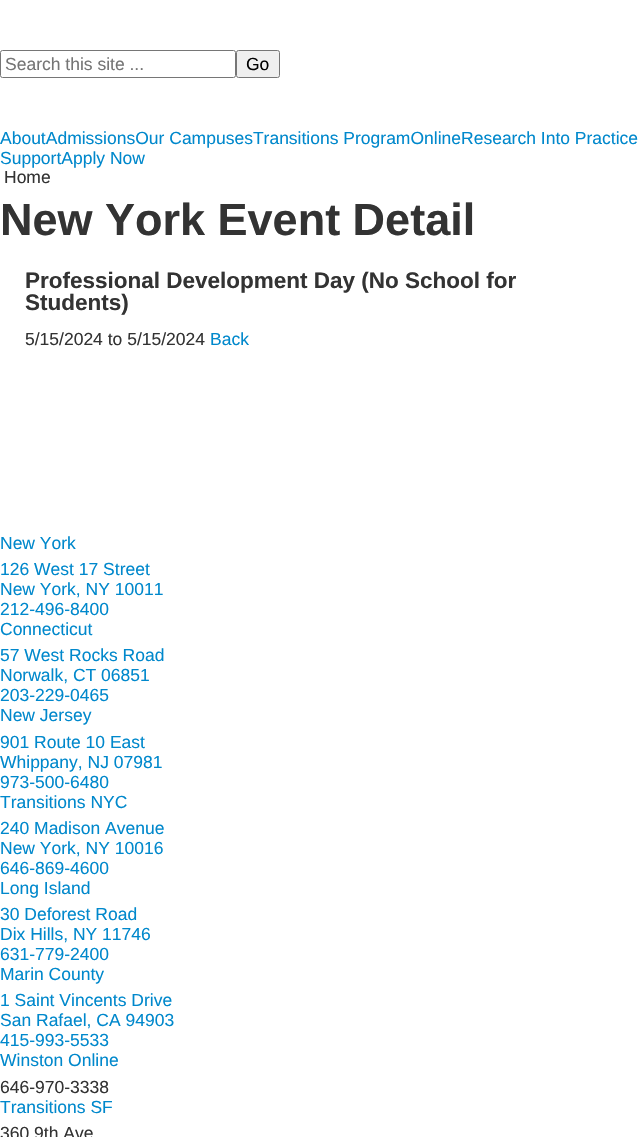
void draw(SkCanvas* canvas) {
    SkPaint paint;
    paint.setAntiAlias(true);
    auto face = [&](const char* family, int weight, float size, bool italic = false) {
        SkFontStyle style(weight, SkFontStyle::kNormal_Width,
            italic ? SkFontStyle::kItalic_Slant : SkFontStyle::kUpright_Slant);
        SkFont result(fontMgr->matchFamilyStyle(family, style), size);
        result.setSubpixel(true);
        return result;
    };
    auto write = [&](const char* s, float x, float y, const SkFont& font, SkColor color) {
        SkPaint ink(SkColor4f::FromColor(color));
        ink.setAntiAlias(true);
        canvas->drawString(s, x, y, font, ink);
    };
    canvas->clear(SK_ColorWHITE);
    paint.setStyle(SkPaint::kStroke_Style);
    paint.setStrokeWidth(1);
    paint.setColor(SkColorSetRGB(118, 118, 118));
    canvas->drawRoundRect(SkRect::MakeXYWH(0.5f, 50.5f, 235, 27), 2, 2, paint);
    auto kFont1 = face("Liberation Sans", 400, 17.5f);
    write("Search this site ...", 5, 70, kFont1, SkColorSetRGB(117, 117, 117));
    paint.setStyle(SkPaint::kFill_Style);
    paint.setColor(SkColorSetRGB(239, 239, 239));
    canvas->drawRoundRect(SkRect::MakeXYWH(236.5f, 50.5f, 43, 27), 2, 2, paint);
    paint.setStyle(SkPaint::kStroke_Style);
    paint.setColor(SkColorSetRGB(118, 118, 118));
    canvas->drawRoundRect(SkRect::MakeXYWH(236.5f, 50.5f, 43, 27), 2, 2, paint);
    write("Go", 246, 70, kFont1, SK_ColorBLACK);
    write("AboutAdmissionsOur CampusesTransitions ProgramOnlineResearch Into Practice", 0, 144, kFont1, SkColorSetRGB(0, 136, 204));
    write("SupportApply Now", 0, 164, kFont1, SkColorSetRGB(0, 136, 204));
    write("Home", 4, 183, kFont1, SkColorSetRGB(51, 51, 51));
    auto kFont2 = face("Liberation Sans", 700, 45);
    write("New York Event Detail", 0, 235, kFont2, SkColorSetRGB(51, 51, 51));
    auto kFont3 = face("Liberation Sans", 700, 22.5f);
    write("Professional Development Day (No School for", 25, 288, kFont3, SkColorSetRGB(51, 51, 51));
    write("Students)", 25, 310, kFont3, SkColorSetRGB(51, 51, 51));
    write("5/15/2024 to 5/15/2024", 25, 345, kFont1, SkColorSetRGB(51, 51, 51));
    write("Back", 210, 345, kFont1, SkColorSetRGB(0, 136, 204));
    write("New York", 0, 549, kFont1, SkColorSetRGB(0, 136, 204));
    write("126 West 17 Street", 0, 575, kFont1, SkColorSetRGB(0, 136, 204));
    write("New York, NY 10011", 0, 595, kFont1, SkColorSetRGB(0, 136, 204));
    write("212-496-8400", 0, 615, kFont1, SkColorSetRGB(0, 136, 204));
    write("Connecticut", 0, 635, kFont1, SkColorSetRGB(0, 136, 204));
    write("57 West Rocks Road", 0, 661, kFont1, SkColorSetRGB(0, 136, 204));
    write("Norwalk, CT 06851", 0, 681, kFont1, SkColorSetRGB(0, 136, 204));
    write("203-229-0465", 0, 701, kFont1, SkColorSetRGB(0, 136, 204));
    write("New Jersey", 0, 721, kFont1, SkColorSetRGB(0, 136, 204));
    write("901 Route 10 East", 0, 748, kFont1, SkColorSetRGB(0, 136, 204));
    write("Whippany, NJ 07981", 0, 768, kFont1, SkColorSetRGB(0, 136, 204));
    write("973-500-6480", 0, 788, kFont1, SkColorSetRGB(0, 136, 204));
    write("Transitions NYC", 0, 808, kFont1, SkColorSetRGB(0, 136, 204));
    write("240 Madison Avenue", 0, 834, kFont1, SkColorSetRGB(0, 136, 204));
    write("New York, NY 10016", 0, 854, kFont1, SkColorSetRGB(0, 136, 204));
    write("646-869-4600", 0, 874, kFont1, SkColorSetRGB(0, 136, 204));
    write("Long Island", 0, 894, kFont1, SkColorSetRGB(0, 136, 204));
    write("30 Deforest Road", 0, 920, kFont1, SkColorSetRGB(0, 136, 204));
    write("Dix Hills, NY 11746", 0, 940, kFont1, SkColorSetRGB(0, 136, 204));
    write("631-779-2400", 0, 960, kFont1, SkColorSetRGB(0, 136, 204));
    write("Marin County", 0, 980, kFont1, SkColorSetRGB(0, 136, 204));
    write("1 Saint Vincents Drive", 0, 1006, kFont1, SkColorSetRGB(0, 136, 204));
    write("San Rafael, CA 94903", 0, 1026, kFont1, SkColorSetRGB(0, 136, 204));
    write("415-993-5533", 0, 1046, kFont1, SkColorSetRGB(0, 136, 204));
    write("Winston Online", 0, 1066, kFont1, SkColorSetRGB(0, 136, 204));
    write("646-970-3338", 0, 1093, kFont1, SkColorSetRGB(51, 51, 51));
    write("Transitions SF", 0, 1113, kFont1, SkColorSetRGB(0, 136, 204));
    write("360 9th Ave", 0, 1139, kFont1, SkColorSetRGB(51, 51, 51));
}
